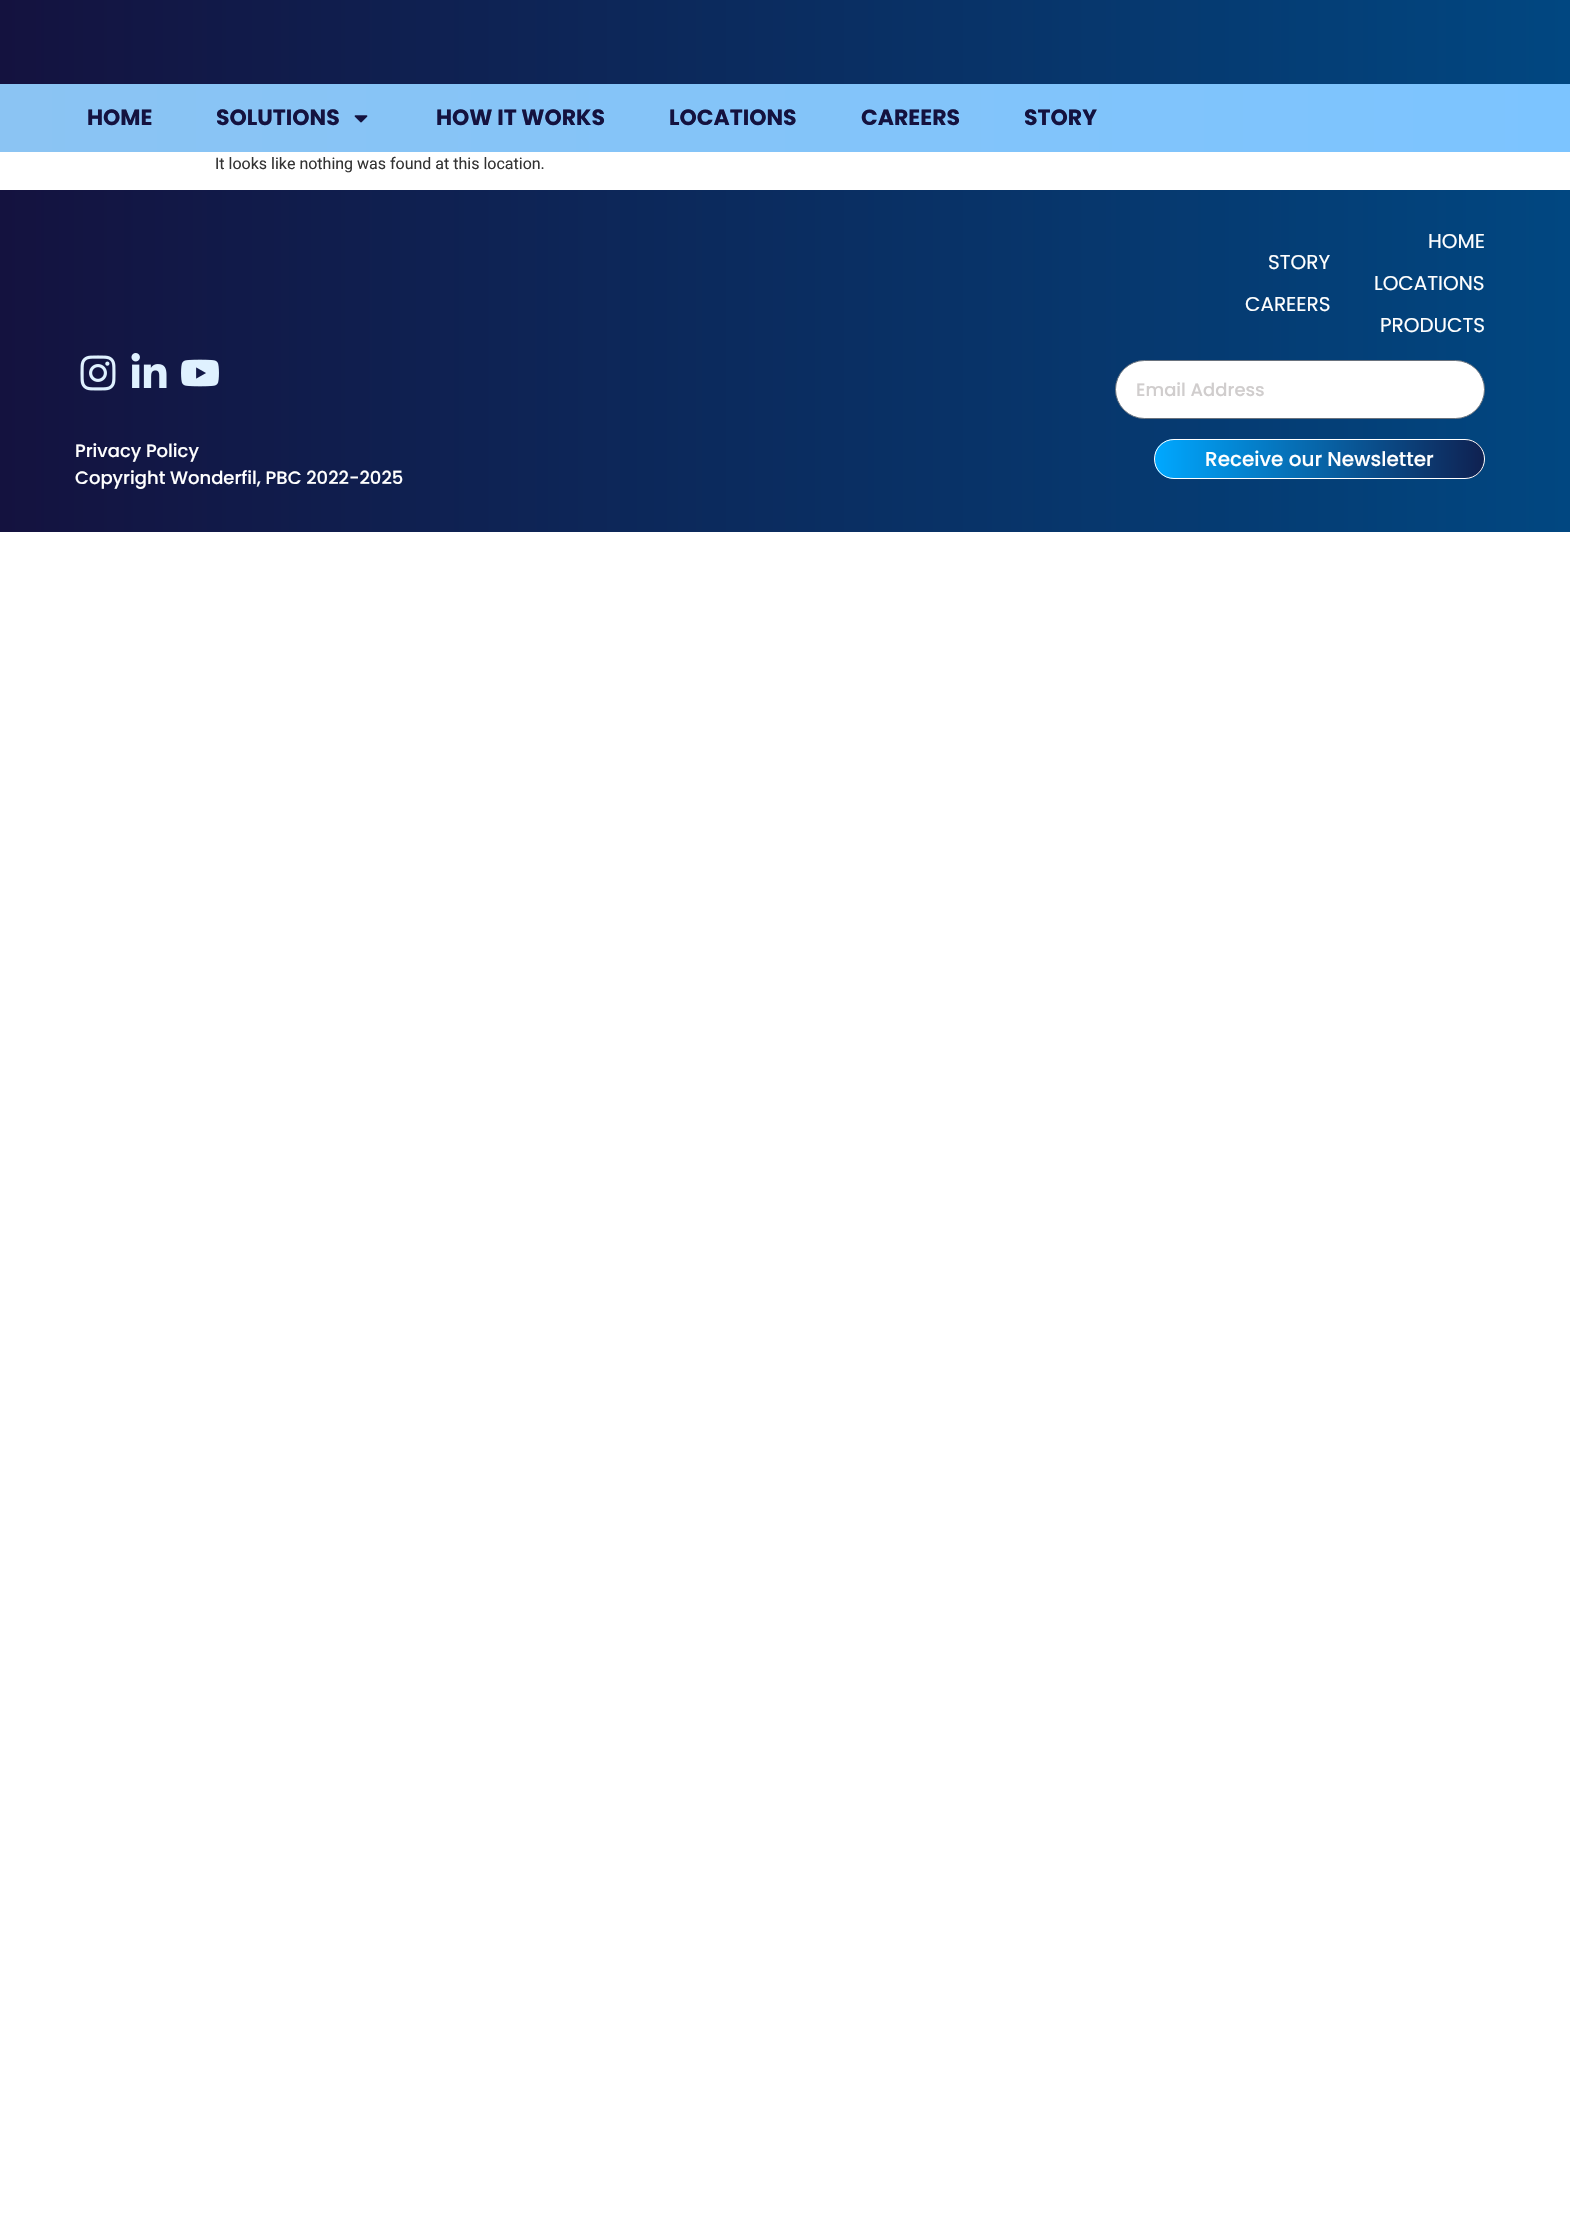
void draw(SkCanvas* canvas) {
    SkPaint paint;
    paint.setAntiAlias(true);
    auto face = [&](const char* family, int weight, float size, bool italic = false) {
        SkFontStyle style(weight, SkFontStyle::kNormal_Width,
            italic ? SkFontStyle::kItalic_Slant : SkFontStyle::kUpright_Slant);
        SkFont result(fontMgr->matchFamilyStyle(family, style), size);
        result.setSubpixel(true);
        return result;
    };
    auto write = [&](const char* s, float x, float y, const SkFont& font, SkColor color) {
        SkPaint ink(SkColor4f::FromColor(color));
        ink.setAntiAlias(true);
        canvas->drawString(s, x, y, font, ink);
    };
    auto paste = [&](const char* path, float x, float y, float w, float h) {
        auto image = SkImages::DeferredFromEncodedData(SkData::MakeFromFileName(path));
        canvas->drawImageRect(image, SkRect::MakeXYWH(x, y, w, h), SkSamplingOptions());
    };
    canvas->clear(SK_ColorWHITE);
    {
        const SkColor colors[] = {SkColorSetRGB(20, 18, 63), SkColorSetRGB(1, 71, 129)};
        const float stops[] = {0, 1};
        const SkPoint ends[] = {{0, 42}, {1570, 42}};
        paint.setShader(SkGradientShader::MakeLinear(ends, colors, stops, 2, SkTileMode::kClamp));
        paint.setAlpha(255);
    }
    canvas->drawRect(SkRect::MakeXYWH(0, 0, 1570, 84), paint);
    {
        const SkColor colors[] = {SkColorSetRGB(139, 196, 243), SkColorSetRGB(124, 196, 255)};
        const float stops[] = {0, 1};
        const SkPoint ends[] = {{0, 118}, {1570, 118}};
        paint.setShader(SkGradientShader::MakeLinear(ends, colors, stops, 2, SkTileMode::kClamp));
        paint.setAlpha(255);
    }
    canvas->drawRect(SkRect::MakeXYWH(0, 84, 1570, 68), paint);
    auto kFont1 = face("Poppins", 700, 22);
    write("HOME", 87, 125, kFont1, SkColorSetRGB(20, 18, 63));
    write("SOLUTIONS", 216, 125, kFont1, SkColorSetRGB(20, 18, 63));
    paste("pic1.png", 354, 115, 14, 8);
    write("HOW IT WORKS", 436, 125, kFont1, SkColorSetRGB(20, 18, 63));
    write("LOCATIONS", 669, 125, kFont1, SkColorSetRGB(20, 18, 63));
    write("CAREERS", 861, 125, kFont1, SkColorSetRGB(20, 18, 63));
    write("STORY", 1024, 125, kFont1, SkColorSetRGB(20, 18, 63));
    auto kFont2 = face("Roboto", 400, 16);
    write("It looks like nothing was found at this location.", 215, 169, kFont2, SkColorSetRGB(51, 51, 51));
    {
        const SkColor colors[] = {SkColorSetRGB(20, 18, 63), SkColorSetRGB(1, 71, 129)};
        const float stops[] = {0, 1};
        const SkPoint ends[] = {{0, 361}, {1570, 361}};
        paint.setShader(SkGradientShader::MakeLinear(ends, colors, stops, 2, SkTileMode::kClamp));
        paint.setAlpha(255);
    }
    canvas->drawRect(SkRect::MakeXYWH(0, 190, 1570, 342), paint);
    auto kFont3 = face("Poppins", 400, 20);
    write("STORY", 1268, 269, kFont3, SK_ColorWHITE);
    write("CAREERS", 1245, 311, kFont3, SK_ColorWHITE);
    write("HOME", 1428, 248, kFont3, SK_ColorWHITE);
    write("LOCATIONS", 1374, 290, kFont3, SK_ColorWHITE);
    write("PRODUCTS", 1380, 332, kFont3, SK_ColorWHITE);
    paste("pic2.png", 80, 355, 36, 36);
    paste("pic3.png", 131, 353, 36, 35);
    paste("pic4.png", 181, 359, 38, 28);
    auto kFont4 = face("Poppins", 500, 18);
    write("Privacy Policy", 75, 457, kFont4, SK_ColorWHITE);
    write("Copyright Wonderfil, PBC 2022-2025", 75, 484, kFont4, SK_ColorWHITE);
    paint.setShader(nullptr);
    paint.setColor(SK_ColorWHITE);
    canvas->drawRoundRect(SkRect::MakeXYWH(1115.5f, 360.5f, 369, 58), 29, 29, paint);
    paint.setStyle(SkPaint::kStroke_Style);
    paint.setStrokeWidth(1);
    paint.setColor(SkColorSetRGB(105, 114, 125));
    canvas->drawRoundRect(SkRect::MakeXYWH(1115.5f, 360.5f, 369, 58), 29, 29, paint);
    write("Email Address", 1136, 396, kFont4, SkColorSetRGB(208, 205, 205));
    canvas->save();
    canvas->clipPath(SkPathBuilder().moveTo(1174, 439).lineTo(1465, 439).cubicTo(1476, 439, 1485, 448, 1485, 459).cubicTo(1485, 470, 1476, 479, 1465, 479).lineTo(1174, 479).cubicTo(1163, 479, 1154, 470, 1154, 459).cubicTo(1154, 448, 1163, 439, 1174, 439).close().detach(), true);
    paint.setStyle(SkPaint::kFill_Style);
    {
        const SkColor colors[] = {SkColorSetRGB(0, 168, 255), SkColorSetRGB(15, 33, 81)};
        const float stops[] = {0, 1};
        const SkPoint ends[] = {{1155, 459}, {1484, 459}};
        paint.setShader(SkGradientShader::MakeLinear(ends, colors, stops, 2, SkTileMode::kClamp));
        paint.setAlpha(255);
    }
    canvas->drawRect(SkRect::MakeXYWH(1155, 439, 329, 40), paint);
    canvas->restore();
    paint.setStyle(SkPaint::kStroke_Style);
    paint.setShader(nullptr);
    paint.setColor(SK_ColorWHITE);
    canvas->drawRoundRect(SkRect::MakeXYWH(1154.5f, 439.5f, 330, 39), 19.5f, 19.5f, paint);
    auto kFont5 = face("Poppins", 500, 20);
    write("Receive our Newsletter", 1205, 466, kFont5, SK_ColorWHITE);
}
